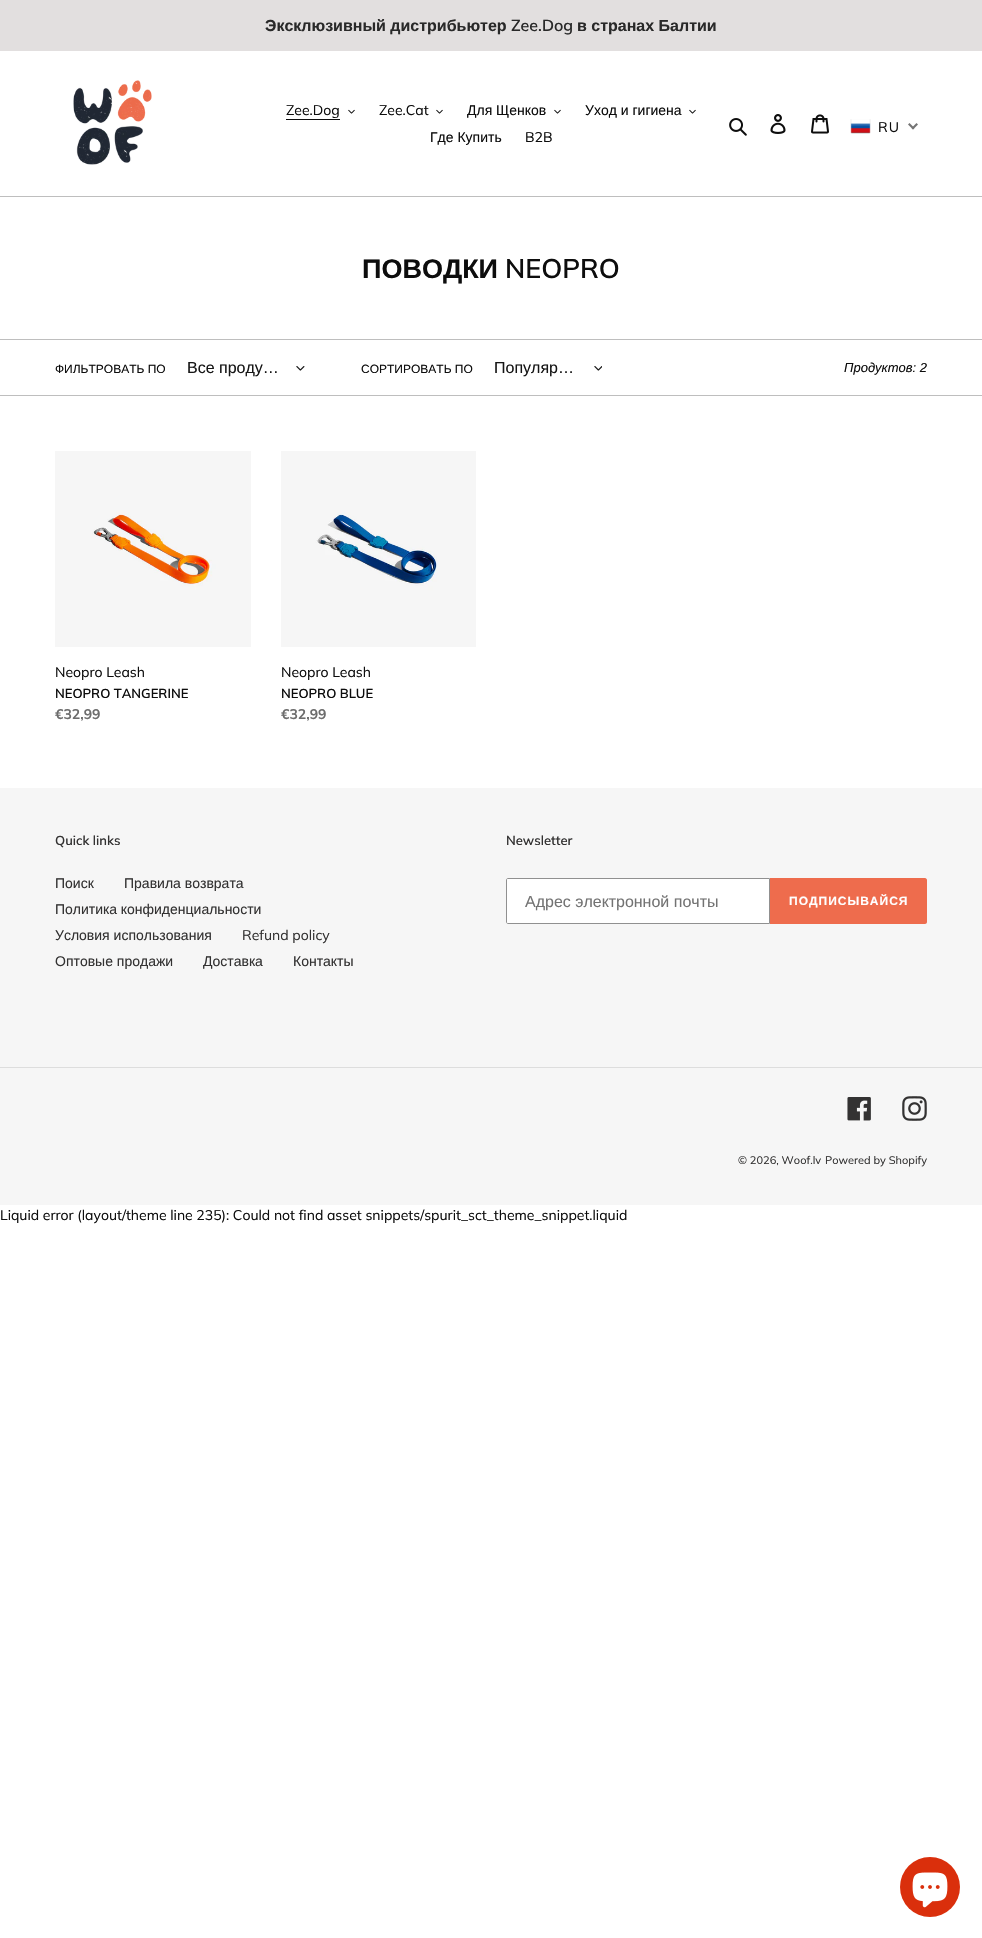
void draw(SkCanvas* canvas) {
    SkPaint paint;
    paint.setAntiAlias(true);
    auto face = [&](const char* family, int weight, float size, bool italic = false) {
        SkFontStyle style(weight, SkFontStyle::kNormal_Width,
            italic ? SkFontStyle::kItalic_Slant : SkFontStyle::kUpright_Slant);
        SkFont result(fontMgr->matchFamilyStyle(family, style), size);
        result.setSubpixel(true);
        return result;
    };
    auto write = [&](const char* s, float x, float y, const SkFont& font, SkColor color) {
        SkPaint ink(SkColor4f::FromColor(color));
        ink.setAntiAlias(true);
        canvas->drawString(s, x, y, font, ink);
    };
    auto writeSpaced = [&](const char* s, float x, float y, const SkFont& font, const SkPaint& ink, float letter, float word) {
        std::vector<SkGlyphID> glyphs(font.countText(s, strlen(s), SkTextEncoding::kUTF8));
        std::vector<float> xs(glyphs.size());
        font.textToGlyphs(s, strlen(s), SkTextEncoding::kUTF8, glyphs);
        font.getXPos(glyphs, xs, x);
        float extra = 0;
        for (size_t i = 0; i < glyphs.size(); i++) {
            xs[i] += extra;
            extra += letter + word * (glyphs[i] == font.unicharToGlyph(' '));
        }
        canvas->drawTextBlob(SkTextBlob::MakeFromPosHGlyphs(glyphs, xs, y, font), 0, 0, ink);
    };
    auto block = [&](float x, float y, float w, float h, SkColor color) {
        SkPaint ink(SkColor4f::FromColor(color));
        ink.setAntiAlias(true);
        canvas->drawRect(SkRect::MakeXYWH(x, y, w, h), ink);
    };
    auto paste = [&](const char* path, float x, float y, float w, float h) {
        auto image = SkImages::DeferredFromEncodedData(SkData::MakeFromFileName(path));
        canvas->drawImageRect(image, SkRect::MakeXYWH(x, y, w, h), SkSamplingOptions());
    };
    canvas->clear(SK_ColorWHITE);
    block(0, 0, 982, 51, SkColorSetRGB(226, 223, 223));
    auto kFont1 = face("Liberation Sans", 700, 16);
    write("Эксклюзивный дистрибьютер", 265, 31, kFont1, SkColorSetRGB(41, 41, 41));
    auto kFont2 = face("Muli", 600, 16);
    write("Zee.Dog", 511, 31, kFont2, SkColorSetRGB(41, 41, 41));
    write("в странах Балтии", 577, 31, kFont1, SkColorSetRGB(41, 41, 41));
    block(0, 196, 982, 1, SkColorSetRGB(190, 190, 190));
    paste("pic1.png", 73, 80, 79, 85);
    auto kFont3 = face("Muli", 400, 14);
    write("Zee.Dog", 286, 115, kFont3, SkColorSetRGB(13, 13, 13));
    block(286, 119, 54, 1, SkColorSetRGB(13, 13, 13));
    paste("pic2.png", 348, 109, 7, 5);
    write("Zee.Cat", 379, 115, kFont3, SkColorSetRGB(13, 13, 13));
    paste("pic2.png", 436, 109, 7, 5);
    auto kFont4 = face("Liberation Sans", 400, 14);
    write("Для Щенков", 467, 115, kFont4, SkColorSetRGB(13, 13, 13));
    paste("pic2.png", 554, 109, 7, 5);
    write("Уход и гигиена", 585, 115, kFont4, SkColorSetRGB(13, 13, 13));
    paste("pic2.png", 689, 109, 7, 5);
    write("Где Купить", 430, 142, kFont4, SkColorSetRGB(13, 13, 13));
    write("B2B", 525, 142, kFont3, SkColorSetRGB(13, 13, 13));
    paste("pic3.png", 729, 118, 18, 18);
    paste("pic4.png", 770, 114, 16, 20);
    paste("pic5.png", 811, 114, 18, 20);
    paste("pic6.png", 850, 119, 21, 15);
    paint.setColor(SkColorSetRGB(13, 13, 13));
    writeSpaced("RU", 878, 132, kFont3, paint, 1, 0);
    paint.setColor(SkColorSetRGB(116, 116, 116));
    canvas->drawPath(SkPathBuilder().moveTo(916.5f, 123).lineTo(918, 124.5f).lineTo(913, 129.5f).lineTo(911.5f, 128).close().detach(), paint);
    canvas->drawPath(SkPathBuilder().moveTo(909.5f, 123).lineTo(914.5f, 128).lineTo(913, 129.5f).lineTo(908, 124.5f).close().detach(), paint);
    auto kFont5 = face("Liberation Sans", 700, 27);
    write("ПОВОДКИ", 362, 278, kFont5, SkColorSetRGB(13, 13, 13));
    auto kFont6 = face("Muli", 600, 27);
    write("NEOPRO", 505, 278, kFont6, SkColorSetRGB(13, 13, 13));
    block(0, 339, 982, 1, SkColorSetRGB(190, 190, 190));
    block(0, 395, 982, 1, SkColorSetRGB(190, 190, 190));
    auto kFont7 = face("Liberation Sans", 400, 12);
    write("ФИЛЬТРОВАТЬ ПО", 55, 373, kFont7, SkColorSetRGB(13, 13, 13));
    auto kFont8 = face("Liberation Sans", 400, 16);
    write("Все проду…", 187, 373, kFont8, SkColorSetRGB(22, 22, 22));
    paste("pic7.png", 296, 366, 9, 5);
    write("СОРТИРОВАТЬ ПО", 361, 373, kFont7, SkColorSetRGB(13, 13, 13));
    write("Популяр…", 494, 373, kFont8, SkColorSetRGB(22, 22, 22));
    paste("pic8.png", 594, 366, 8, 5);
    auto kFont9 = face("Liberation Sans", 400, 13, true);
    write("Продуктов: 2", 844, 372, kFont9, SkColorSetRGB(13, 13, 13));
    paste("pic9.png", 55, 451, 196, 196);
    write("Neopro Leash", 55, 677, kFont3, SkColorSetRGB(13, 13, 13));
    auto kFont10 = face("Muli", 600, 13);
    write("NEOPRO TANGERINE", 55, 698, kFont10, SkColorSetRGB(13, 13, 13));
    auto kFont11 = face("Muli", 700, 14);
    write("€32,99", 55, 719, kFont11, SkColorSetRGB(109, 109, 109));
    paste("pic10.png", 281, 451, 195, 196);
    write("Neopro Leash", 281, 677, kFont3, SkColorSetRGB(13, 13, 13));
    write("NEOPRO BLUE", 281, 698, kFont10, SkColorSetRGB(13, 13, 13));
    write("€32,99", 281, 719, kFont11, SkColorSetRGB(109, 109, 109));
    block(0, 788, 982, 417, SkColorSetRGB(246, 246, 246));
    write("Quick links", 55, 845, kFont10, SkColorSetRGB(51, 50, 50));
    write("Поиск", 55, 888, kFont4, SkColorSetRGB(51, 50, 50));
    write("Правила возврата", 124, 888, kFont4, SkColorSetRGB(51, 50, 50));
    write("Политика конфиденциальности", 55, 914, kFont4, SkColorSetRGB(51, 50, 50));
    write("Условия использования", 55, 940, kFont4, SkColorSetRGB(51, 50, 50));
    write("Refund policy", 242, 940, kFont3, SkColorSetRGB(51, 50, 50));
    write("Оптовые продажи", 55, 966, kFont4, SkColorSetRGB(51, 50, 50));
    write("Доставка", 203, 966, kFont4, SkColorSetRGB(51, 50, 50));
    write("Контакты", 293, 966, kFont4, SkColorSetRGB(51, 50, 50));
    write("Newsletter", 506, 845, kFont10, SkColorSetRGB(51, 50, 50));
    paint.setColor(SK_ColorWHITE);
    canvas->drawPath(SkPathBuilder().moveTo(508, 878.5f).lineTo(769.5f, 878.5f).lineTo(769.5f, 923.5f).lineTo(508, 923.5f).cubicTo(507, 923.5f, 506.5f, 923, 506.5f, 922).lineTo(506.5f, 880).cubicTo(506.5f, 879, 507, 878.5f, 508, 878.5f).close().detach(), paint);
    paint.setStyle(SkPaint::kStroke_Style);
    paint.setStrokeWidth(1);
    paint.setColor(SkColorSetRGB(144, 144, 144));
    canvas->drawPath(SkPathBuilder().moveTo(508, 878.5f).lineTo(769.5f, 878.5f).lineTo(769.5f, 923.5f).lineTo(508, 923.5f).cubicTo(507, 923.5f, 506.5f, 923, 506.5f, 922).lineTo(506.5f, 880).cubicTo(506.5f, 879, 507, 878.5f, 508, 878.5f).close().detach(), paint);
    write("Адрес электронной почты", 525, 907, kFont8, SkColorSetRGB(115, 115, 115));
    paint.setStyle(SkPaint::kFill_Style);
    paint.setColor(SkColorSetRGB(238, 108, 77));
    canvas->drawPath(SkPathBuilder().moveTo(770, 878).lineTo(925, 878).cubicTo(926, 878, 927, 879, 927, 880).lineTo(927, 922).cubicTo(927, 923, 926, 924, 925, 924).lineTo(770, 924).close().detach(), paint);
    auto kFont12 = face("Liberation Sans", 700, 12);
    paint.setColor(SK_ColorWHITE);
    writeSpaced("ПОДПИСЫВАЙСЯ", 789, 905, kFont12, paint, 1, 0);
    block(0, 1067, 982, 1, SkColorSetRGB(221, 221, 221));
    paste("pic11.png", 847, 1097, 24, 24);
    paste("pic12.png", 902, 1096, 25, 25);
    auto kFont13 = face("Muli", 400, 11);
    write("© 2026, Woof.lv", 738, 1164, kFont13, SkColorSetRGB(51, 50, 50));
    write("Powered by Shopify", 825, 1164, kFont13, SkColorSetRGB(51, 50, 50));
    write("Liquid error (layout/theme line 235): Could not find asset snippets/spurit_sct_theme_snippet.liquid", 0, 1220, kFont3, SkColorSetRGB(13, 13, 13));
    paint.setColor(SkColorSetRGB(218, 47, 12));
    canvas->drawCircle(930, 1887, 30, paint);
    paste("pic13.png", 912, 1872, 36, 36);
}
